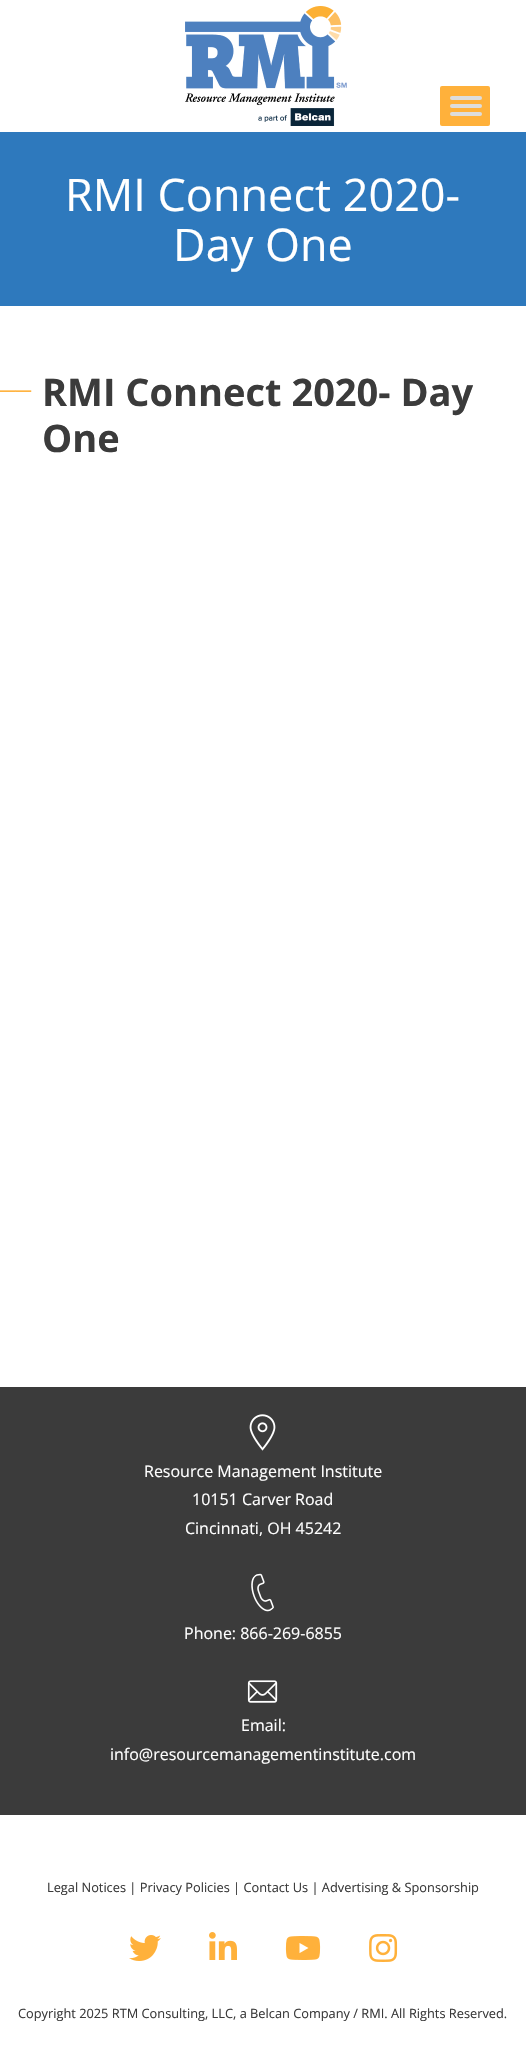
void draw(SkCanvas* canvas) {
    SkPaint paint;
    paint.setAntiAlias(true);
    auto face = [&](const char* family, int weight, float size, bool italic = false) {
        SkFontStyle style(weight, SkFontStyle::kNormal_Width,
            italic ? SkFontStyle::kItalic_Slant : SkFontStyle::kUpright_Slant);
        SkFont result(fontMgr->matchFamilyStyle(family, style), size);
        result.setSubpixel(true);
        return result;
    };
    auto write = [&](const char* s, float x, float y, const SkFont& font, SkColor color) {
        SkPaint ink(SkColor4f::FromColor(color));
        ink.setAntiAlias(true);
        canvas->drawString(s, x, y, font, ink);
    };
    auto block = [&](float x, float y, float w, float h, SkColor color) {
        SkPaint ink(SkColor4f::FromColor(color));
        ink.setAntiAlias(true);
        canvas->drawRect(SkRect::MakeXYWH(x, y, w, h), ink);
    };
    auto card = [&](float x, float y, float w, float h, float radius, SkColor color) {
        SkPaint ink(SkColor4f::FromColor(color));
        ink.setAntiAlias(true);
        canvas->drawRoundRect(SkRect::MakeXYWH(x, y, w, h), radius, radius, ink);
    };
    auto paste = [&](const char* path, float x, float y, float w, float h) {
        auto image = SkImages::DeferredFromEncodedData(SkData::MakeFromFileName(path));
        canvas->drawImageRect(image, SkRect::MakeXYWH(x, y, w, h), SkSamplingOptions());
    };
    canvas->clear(SK_ColorWHITE);
    paste("pic1.png", 185, 6, 162, 120);
    card(440, 86, 50, 40, 2, SkColorSetRGB(255, 177, 59));
    card(450, 96, 32, 4, 2, SkColorSetRGB(221, 221, 221));
    card(450, 104, 32, 4, 2, SkColorSetRGB(221, 221, 221));
    card(450, 112, 32, 4, 2, SkColorSetRGB(221, 221, 221));
    block(0, 132, 526, 174, SkColorSetRGB(46, 121, 189));
    auto kFont1 = face("Open Sans", 400, 45);
    write("RMI Connect 2020-", 65, 211, kFont1, SK_ColorWHITE);
    write("Day One", 173, 261, kFont1, SK_ColorWHITE);
    auto kFont2 = face("Open Sans", 300, 38);
    write("__", 0, 387, kFont2, SkColorSetRGB(255, 177, 59));
    auto kFont3 = face("Open Sans", 700, 38);
    write("RMI Connect 2020- Day", 42, 406, kFont3, SkColorSetRGB(59, 59, 59));
    write("One", 42, 452, kFont3, SkColorSetRGB(59, 59, 59));
    block(0, 1387, 526, 428, SkColorSetRGB(59, 59, 59));
    paste("pic2.png", 249, 1414, 27, 37);
    auto kFont4 = face("Open Sans", 400, 16);
    write("Resource Management Institute", 144, 1477, kFont4, SK_ColorWHITE);
    write("10151 Carver Road", 192, 1505, kFont4, SK_ColorWHITE);
    write("Cincinnati, OH 45242", 185, 1534, kFont4, SK_ColorWHITE);
    paste("pic3.png", 251, 1573, 23, 39);
    write("Phone: 866-269-6855", 184, 1639, kFont4, SK_ColorWHITE);
    paste("pic4.png", 247, 1680, 31, 23);
    write("Email:", 241, 1731, kFont4, SK_ColorWHITE);
    write("info@resourcemanagementinstitute.com", 110, 1760, kFont4, SK_ColorWHITE);
    auto kFont5 = face("Open Sans", 400, 12.8f);
    write("Legal Notices | Privacy Policies | Contact Us | Advertising & Sponsorship", 47, 1892, kFont5, SkColorSetRGB(59, 59, 59));
    paste("pic5.png", 129, 1935, 32, 26);
    paste("pic6.png", 209, 1932, 28, 28);
    paste("pic7.png", 285, 1936, 36, 24);
    paste("pic8.png", 369, 1934, 29, 28);
    write("Copyright 2025 RTM Consulting, LLC, a Belcan Company / RMI. All Rights Reserved.", 18, 2018, kFont5, SkColorSetRGB(59, 59, 59));
}
